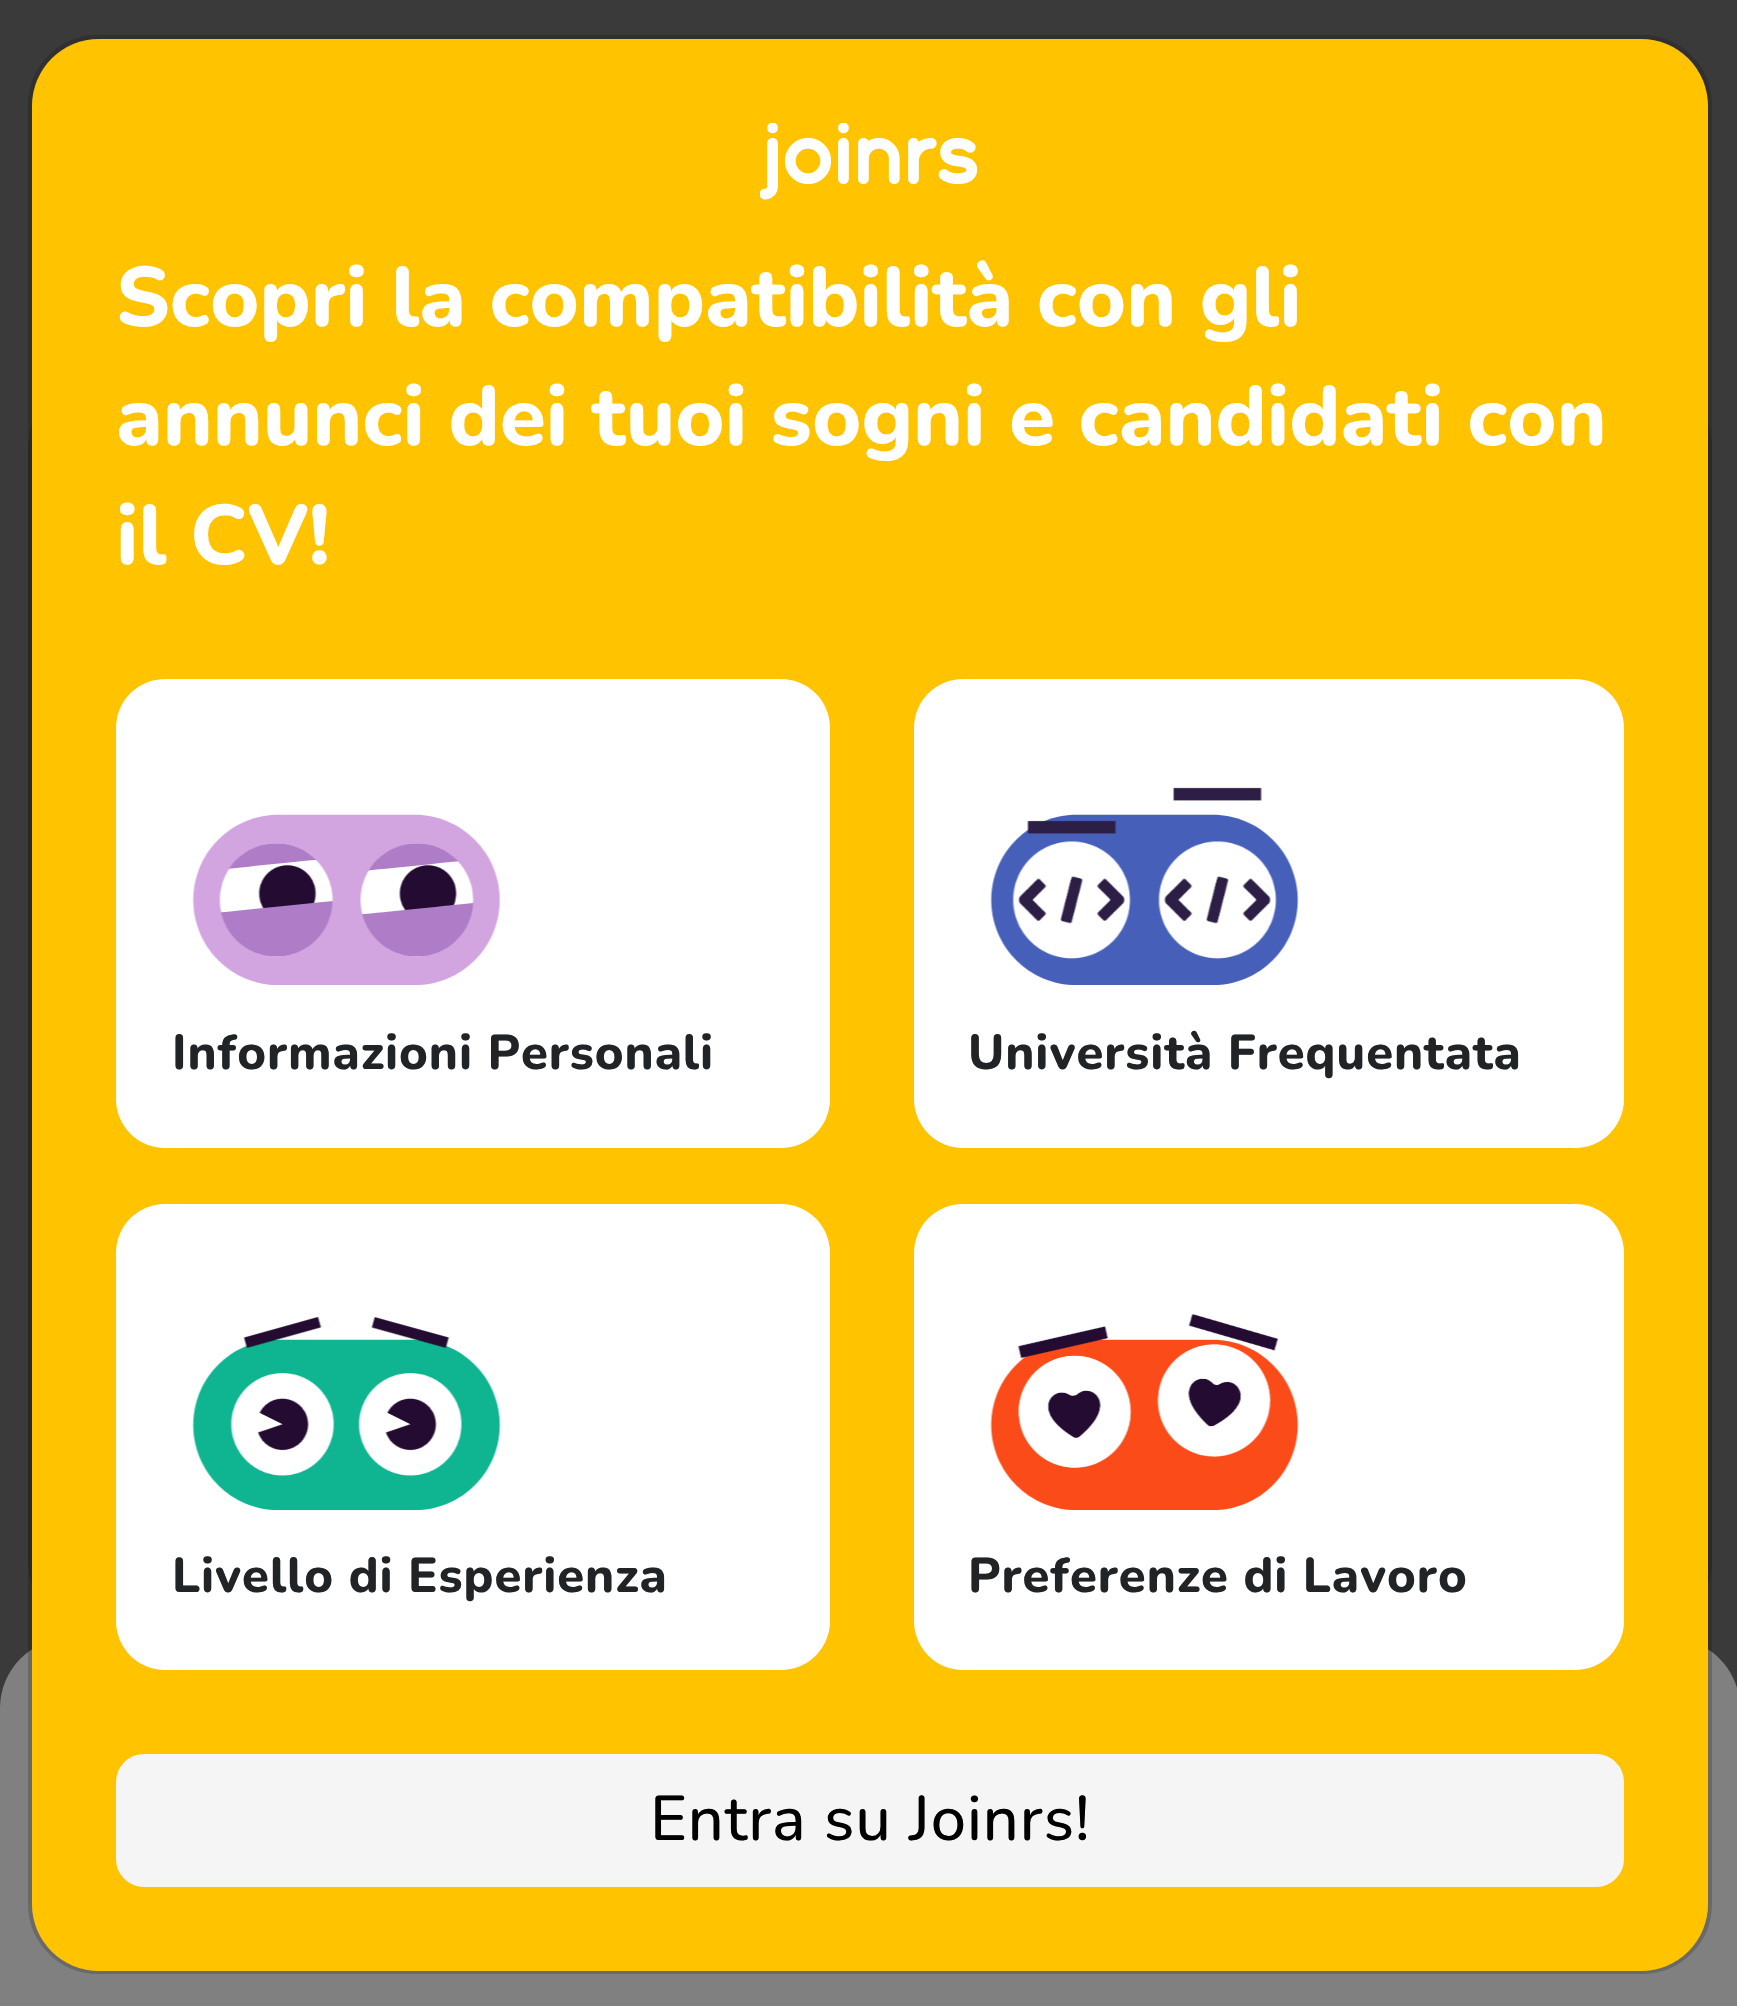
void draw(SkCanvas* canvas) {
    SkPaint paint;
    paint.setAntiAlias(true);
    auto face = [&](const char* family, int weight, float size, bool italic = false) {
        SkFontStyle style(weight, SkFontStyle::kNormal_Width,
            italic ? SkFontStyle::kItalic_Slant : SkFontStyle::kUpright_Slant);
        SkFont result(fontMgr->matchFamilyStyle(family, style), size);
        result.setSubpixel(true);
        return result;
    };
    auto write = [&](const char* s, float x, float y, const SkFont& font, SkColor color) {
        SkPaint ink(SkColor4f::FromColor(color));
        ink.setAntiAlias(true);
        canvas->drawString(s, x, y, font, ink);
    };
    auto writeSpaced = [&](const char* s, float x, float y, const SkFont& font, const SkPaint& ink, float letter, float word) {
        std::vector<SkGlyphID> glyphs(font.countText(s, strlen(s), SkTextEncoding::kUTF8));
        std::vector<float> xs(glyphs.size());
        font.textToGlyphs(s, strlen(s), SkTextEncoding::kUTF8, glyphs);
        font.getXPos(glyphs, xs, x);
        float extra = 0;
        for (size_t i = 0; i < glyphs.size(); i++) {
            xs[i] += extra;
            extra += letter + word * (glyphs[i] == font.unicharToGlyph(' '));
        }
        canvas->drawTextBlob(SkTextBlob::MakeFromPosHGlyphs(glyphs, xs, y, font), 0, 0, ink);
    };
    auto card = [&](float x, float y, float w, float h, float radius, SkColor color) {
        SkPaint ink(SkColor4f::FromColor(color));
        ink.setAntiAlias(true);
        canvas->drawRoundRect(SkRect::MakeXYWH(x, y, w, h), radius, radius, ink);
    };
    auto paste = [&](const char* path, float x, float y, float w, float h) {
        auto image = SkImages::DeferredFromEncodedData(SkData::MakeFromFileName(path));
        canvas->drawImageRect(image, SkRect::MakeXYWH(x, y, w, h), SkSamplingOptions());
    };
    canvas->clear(SkColorSetRGB(58, 58, 58));
    paint.setStyle(SkPaint::kStroke_Style);
    paint.setStrokeWidth(4);
    paint.setColor(SkColorSetARGB(46, 0, 0, 0));
    canvas->drawRoundRect(SkRect::MakeXYWH(30, 380, 1680, 1249), 68, 68, paint);
    paint.setStyle(SkPaint::kFill_Style);
    paint.setColor(SkColorSetRGB(128, 128, 128));
    canvas->drawPath(SkPathBuilder().moveTo(70, 1638).lineTo(1670, 1638).cubicTo(1708.5f, 1638, 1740, 1669.5f, 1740, 1708).lineTo(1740, 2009).lineTo(0, 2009).lineTo(0, 1708).cubicTo(0, 1669.5f, 31.5f, 1638, 70, 1638).close().detach(), paint);
    paint.setStyle(SkPaint::kStroke_Style);
    paint.setColor(SkColorSetARGB(46, 0, 0, 0));
    canvas->drawRoundRect(SkRect::MakeXYWH(30, 37, 1680, 1935), 68, 68, paint);
    card(32, 39, 1676, 1932, 67, SkColorSetRGB(255, 195, 0));
    paste("pic1.png", 760, 123, 218, 77);
    auto kFont1 = face("Nunito", 800, 84);
    write("Scopri la compatibilità con gli", 116, 326, kFont1, SK_ColorWHITE);
    write("annunci dei tuoi sogni e candidati con", 116, 445, kFont1, SK_ColorWHITE);
    write("il CV!", 116, 564, kFont1, SK_ColorWHITE);
    card(116, 679, 714, 469, 49, SK_ColorWHITE);
    paste("pic2.png", 192, 814, 309, 171);
    auto kFont2 = face("Nunito", 800, 49);
    paint.setStyle(SkPaint::kFill_Style);
    paint.setColor(SkColorSetRGB(33, 36, 39));
    writeSpaced("Informazioni Personali", 172, 1069, kFont2, paint, 0.9f, 0);
    card(914, 679, 710, 469, 49, SK_ColorWHITE);
    paste("pic3.png", 990, 787, 309, 198);
    writeSpaced("Università Frequentata", 968, 1069, kFont2, paint, 0.9f, 0);
    card(116, 1204, 714, 466, 49, SK_ColorWHITE);
    paste("pic4.png", 192, 1316, 309, 194);
    writeSpaced("Livello di Esperienza", 172, 1592, kFont2, paint, 0.9f, 0);
    card(914, 1204, 710, 466, 49, SK_ColorWHITE);
    paste("pic5.png", 990, 1314, 309, 196);
    writeSpaced("Preferenze di Lavoro", 968, 1592, kFont2, paint, 0.9f, 0);
    paint.setColor(SkColorSetRGB(245, 245, 245));
    canvas->drawRoundRect(SkRect::MakeXYWH(118, 1756, 1504, 129), 26, 26, paint);
    paint.setStyle(SkPaint::kStroke_Style);
    canvas->drawRoundRect(SkRect::MakeXYWH(118, 1756, 1504, 129), 26, 26, paint);
    auto kFont3 = face("Nunito", 500, 63);
    paint.setStyle(SkPaint::kFill_Style);
    paint.setColor(SK_ColorBLACK);
    writeSpaced("Entra su Joinrs!", 650, 1840, kFont3, paint, 0.9f, 0);
}
